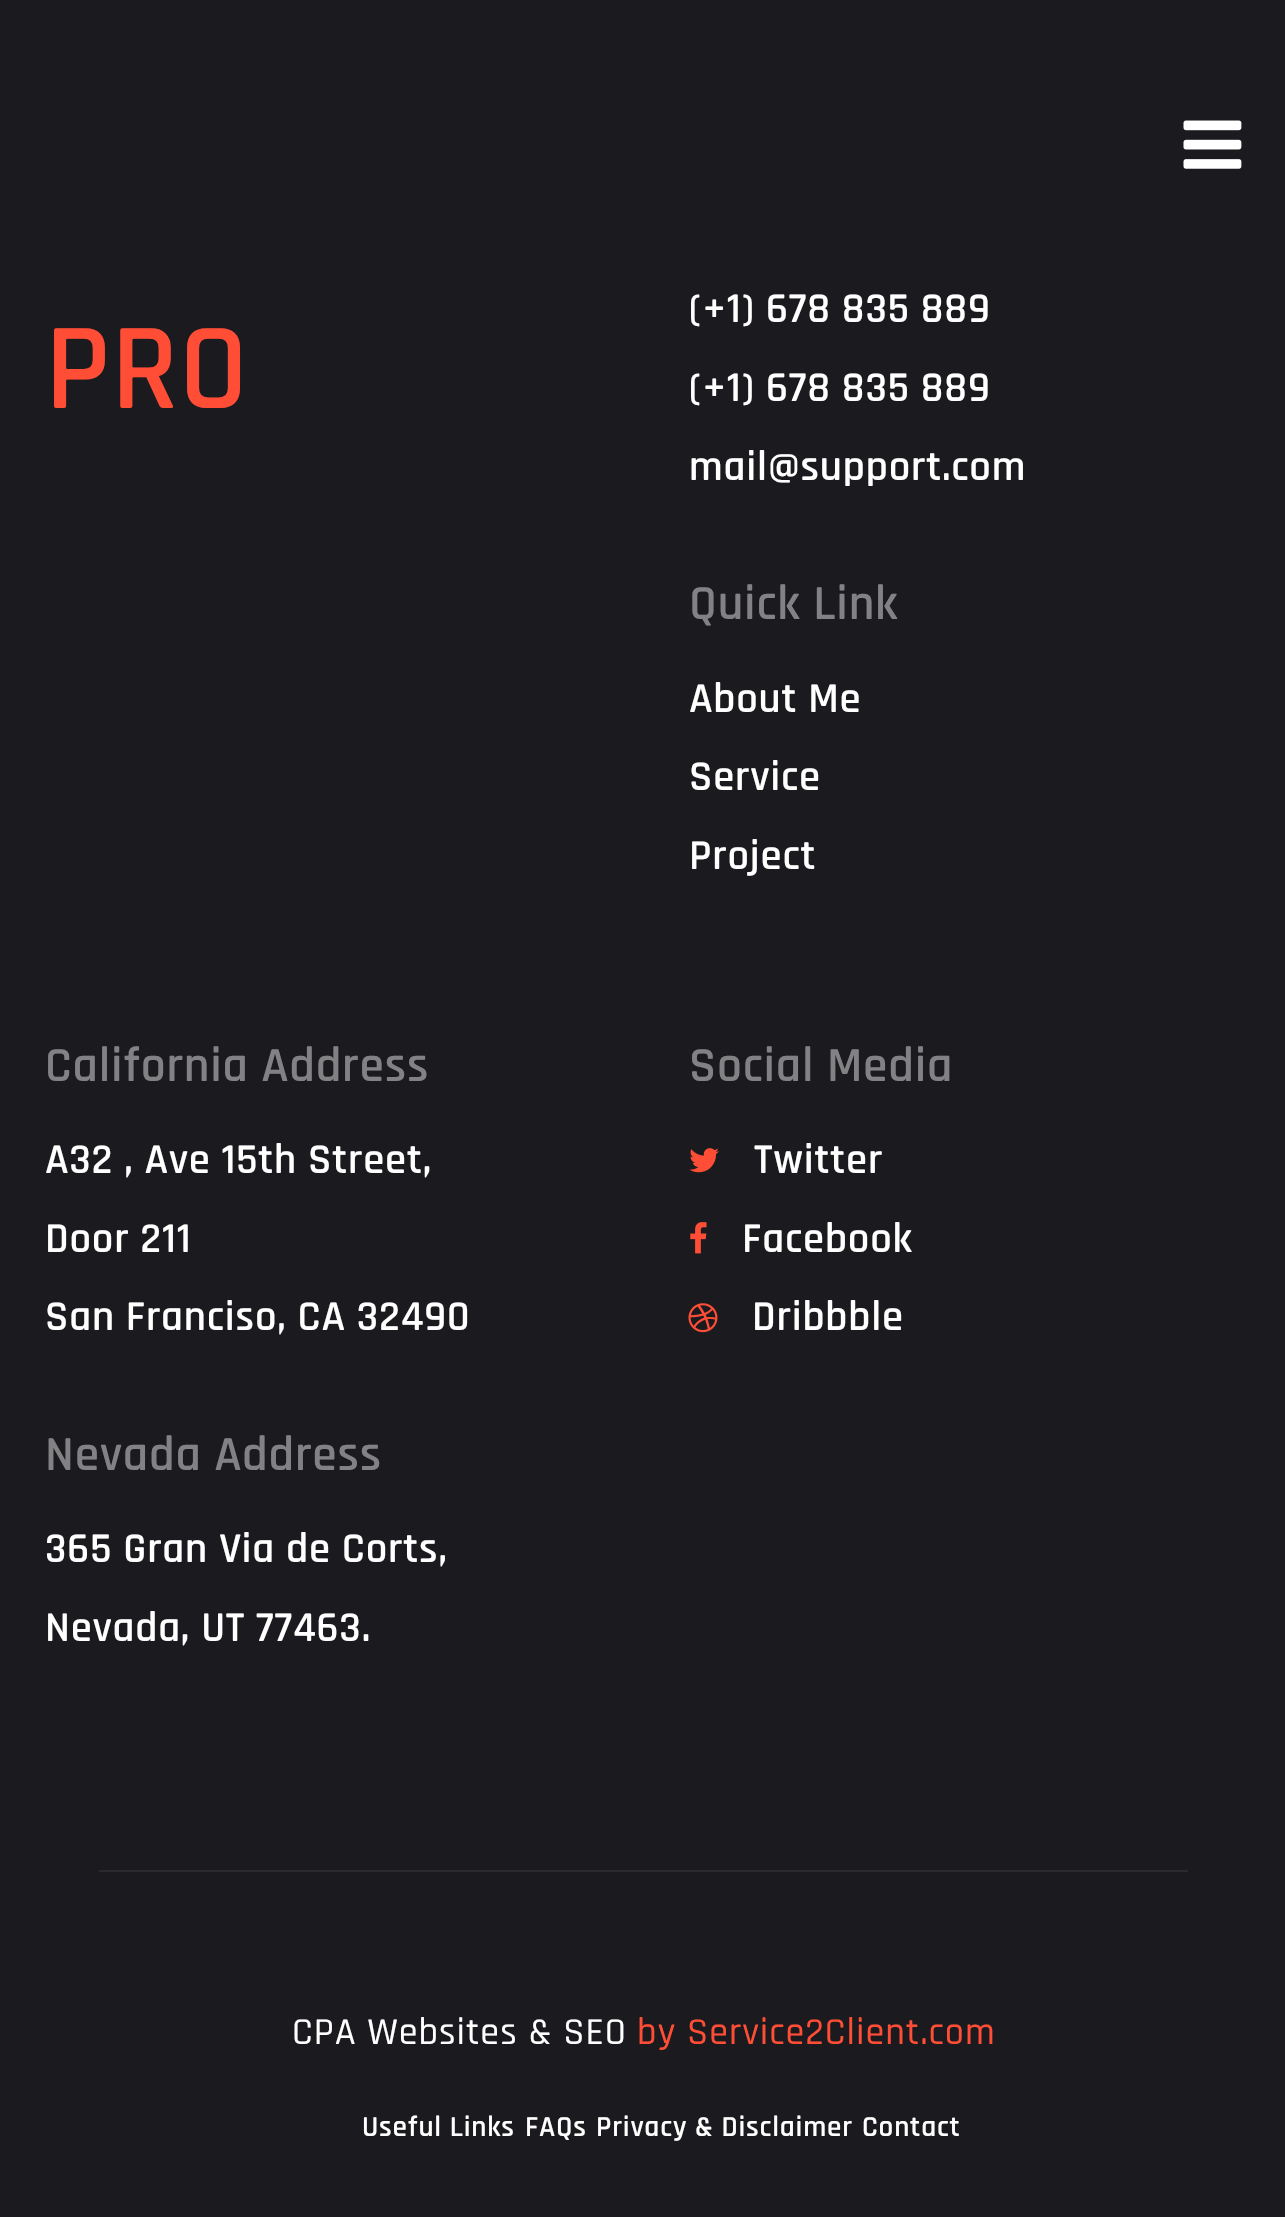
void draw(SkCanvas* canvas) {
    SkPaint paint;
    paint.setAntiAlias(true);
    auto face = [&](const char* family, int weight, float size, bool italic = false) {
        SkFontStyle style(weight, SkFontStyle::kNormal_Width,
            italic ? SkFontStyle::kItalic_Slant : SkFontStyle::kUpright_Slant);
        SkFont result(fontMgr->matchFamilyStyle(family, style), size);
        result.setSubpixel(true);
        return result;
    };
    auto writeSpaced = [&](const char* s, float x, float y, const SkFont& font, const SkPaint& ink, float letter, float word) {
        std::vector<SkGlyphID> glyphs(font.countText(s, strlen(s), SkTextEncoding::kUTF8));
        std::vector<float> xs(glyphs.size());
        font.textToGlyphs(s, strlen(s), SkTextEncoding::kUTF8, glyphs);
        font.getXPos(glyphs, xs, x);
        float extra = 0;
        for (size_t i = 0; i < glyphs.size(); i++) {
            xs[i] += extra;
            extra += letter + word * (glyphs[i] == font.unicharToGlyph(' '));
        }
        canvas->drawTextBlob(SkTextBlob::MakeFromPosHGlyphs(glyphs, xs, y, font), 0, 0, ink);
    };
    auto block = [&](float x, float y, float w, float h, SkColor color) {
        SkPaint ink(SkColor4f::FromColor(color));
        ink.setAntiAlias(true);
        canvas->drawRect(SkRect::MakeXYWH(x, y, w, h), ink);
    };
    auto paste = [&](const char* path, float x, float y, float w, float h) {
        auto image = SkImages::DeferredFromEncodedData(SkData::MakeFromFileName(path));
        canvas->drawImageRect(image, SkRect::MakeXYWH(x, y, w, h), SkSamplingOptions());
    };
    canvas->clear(SkColorSetRGB(27, 27, 31));
    paste("pic1.png", 1183, 120, 59, 49);
    auto kFont1 = face("Rajdhani", 600, 124);
    paint.setColor(SkColorSetRGB(255, 77, 54));
    writeSpaced("PRO", 45, 408, kFont1, paint, 0.8f, 0);
    auto kFont2 = face("Rajdhani", 600, 42.75f);
    paint.setColor(SK_ColorWHITE);
    writeSpaced("(+1) 678 835 889", 689, 322, kFont2, paint, 0.8f, 0);
    writeSpaced("(+1) 678 835 889", 689, 401, kFont2, paint, 0.8f, 0);
    writeSpaced("mail@support.com", 689, 480, kFont2, paint, 0.8f, 0);
    auto kFont3 = face("Rajdhani", 600, 49.5f);
    paint.setColor(SkColorSetRGB(130, 130, 132));
    writeSpaced("Quick Link", 689, 619, kFont3, paint, 0.8f, 0);
    paint.setColor(SK_ColorWHITE);
    writeSpaced("About Me", 689, 712, kFont2, paint, 0.8f, 0);
    writeSpaced("Service", 689, 790, kFont2, paint, 0.8f, 0);
    writeSpaced("Project", 689, 869, kFont2, paint, 0.8f, 0);
    paint.setColor(SkColorSetRGB(130, 130, 132));
    writeSpaced("California Address", 45, 1081, kFont3, paint, 0.8f, 0);
    paint.setColor(SK_ColorWHITE);
    writeSpaced("A32 , Ave 15th Street,", 45, 1173, kFont2, paint, 0.8f, 0);
    writeSpaced("Door 211", 45, 1252, kFont2, paint, 0.8f, 0);
    writeSpaced("San Franciso, CA 32490", 45, 1330, kFont2, paint, 0.8f, 0);
    paint.setColor(SkColorSetRGB(130, 130, 132));
    writeSpaced("Nevada Address", 45, 1470, kFont3, paint, 0.8f, 0);
    paint.setColor(SK_ColorWHITE);
    writeSpaced("365 Gran Via de Corts,", 45, 1562, kFont2, paint, 0.8f, 0);
    writeSpaced("Nevada, UT 77463.", 45, 1641, kFont2, paint, 0.8f, 0);
    paint.setColor(SkColorSetRGB(130, 130, 132));
    writeSpaced("Social Media", 689, 1081, kFont3, paint, 0.8f, 0);
    paste("pic2.png", 689, 1148, 30, 25);
    paint.setColor(SK_ColorWHITE);
    writeSpaced("Twitter", 754, 1173, kFont2, paint, 0.8f, 0);
    paste("pic3.png", 690, 1222, 17, 32);
    writeSpaced("Facebook", 742, 1252, kFont2, paint, 0.8f, 0);
    paste("pic4.png", 688, 1303, 30, 30);
    writeSpaced("Dribbble", 752, 1330, kFont2, paint, 0.8f, 0);
    block(99, 1870, 1089, 2, SkColorSetRGB(43, 43, 47));
    auto kFont4 = face("Rajdhani", 500, 38.25f);
    writeSpaced("CPA Websites & SEO", 292, 2044, kFont4, paint, 1, 0);
    paint.setColor(SkColorSetRGB(255, 77, 54));
    writeSpaced("by Service2Client.com", 637, 2044, kFont4, paint, 1, 0);
    auto kFont5 = face("Rajdhani", 600, 29.25f);
    paint.setColor(SK_ColorWHITE);
    writeSpaced("Useful Links", 362, 2136, kFont5, paint, 0.8f, 0);
    writeSpaced("FAQs", 525, 2136, kFont5, paint, 0.8f, 0);
    writeSpaced("Privacy & Disclaimer", 596, 2136, kFont5, paint, 0.8f, 0);
    writeSpaced("Contact", 862, 2136, kFont5, paint, 0.8f, 0);
}
